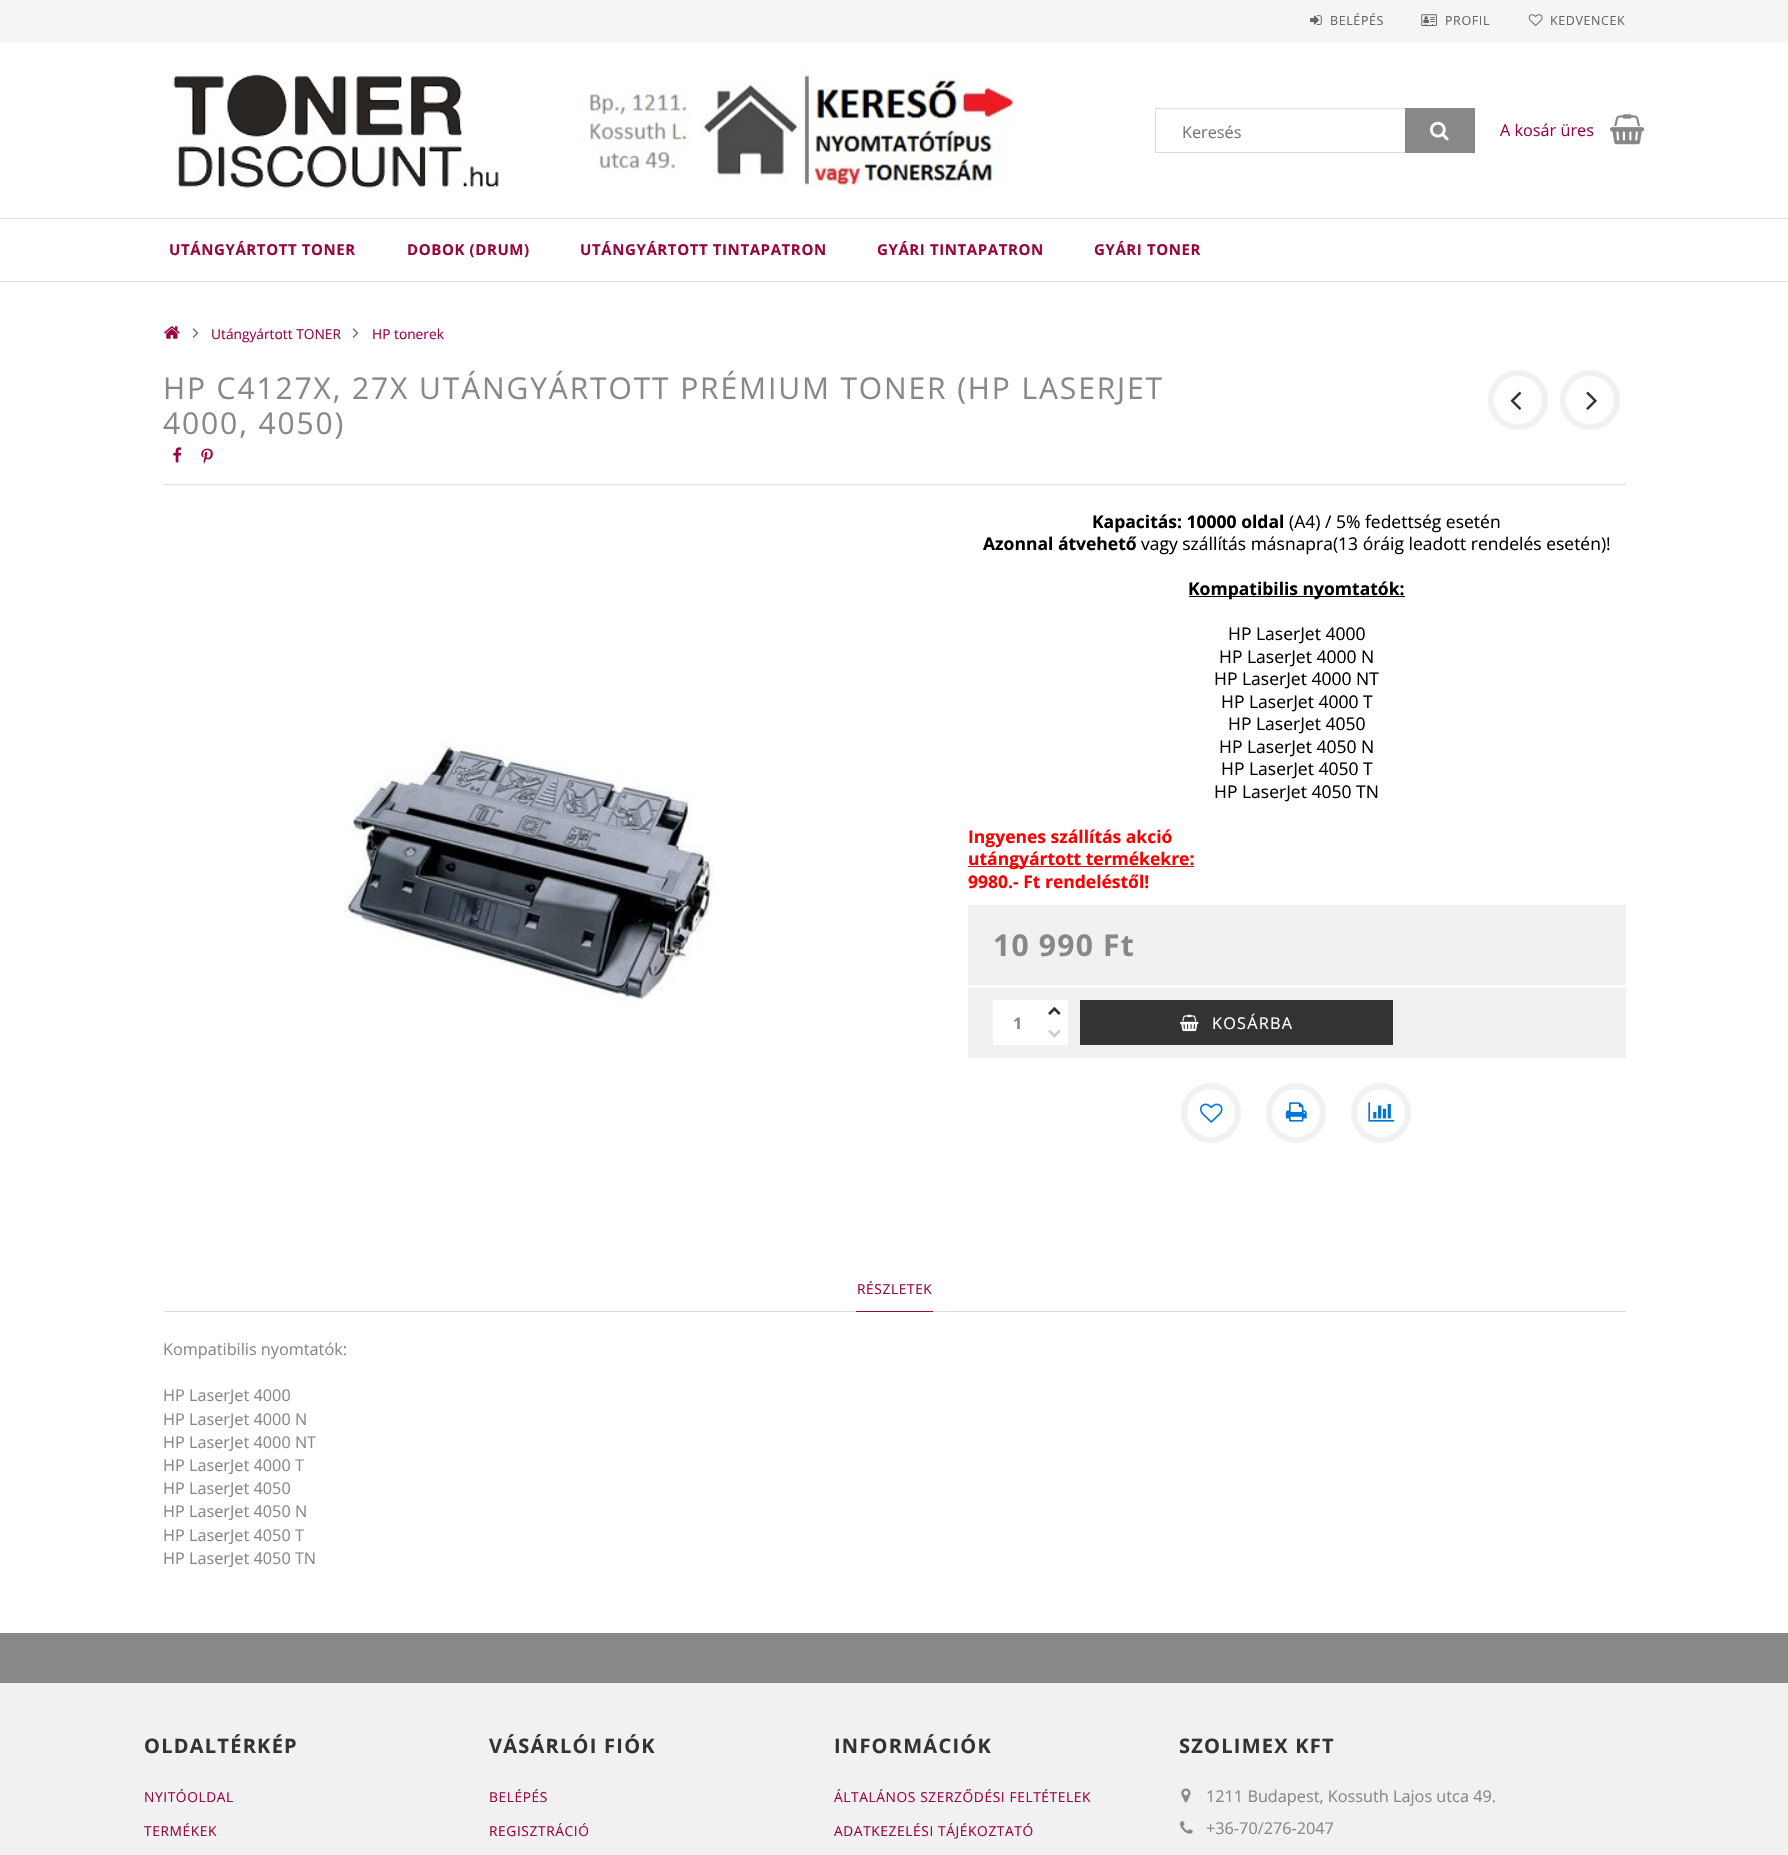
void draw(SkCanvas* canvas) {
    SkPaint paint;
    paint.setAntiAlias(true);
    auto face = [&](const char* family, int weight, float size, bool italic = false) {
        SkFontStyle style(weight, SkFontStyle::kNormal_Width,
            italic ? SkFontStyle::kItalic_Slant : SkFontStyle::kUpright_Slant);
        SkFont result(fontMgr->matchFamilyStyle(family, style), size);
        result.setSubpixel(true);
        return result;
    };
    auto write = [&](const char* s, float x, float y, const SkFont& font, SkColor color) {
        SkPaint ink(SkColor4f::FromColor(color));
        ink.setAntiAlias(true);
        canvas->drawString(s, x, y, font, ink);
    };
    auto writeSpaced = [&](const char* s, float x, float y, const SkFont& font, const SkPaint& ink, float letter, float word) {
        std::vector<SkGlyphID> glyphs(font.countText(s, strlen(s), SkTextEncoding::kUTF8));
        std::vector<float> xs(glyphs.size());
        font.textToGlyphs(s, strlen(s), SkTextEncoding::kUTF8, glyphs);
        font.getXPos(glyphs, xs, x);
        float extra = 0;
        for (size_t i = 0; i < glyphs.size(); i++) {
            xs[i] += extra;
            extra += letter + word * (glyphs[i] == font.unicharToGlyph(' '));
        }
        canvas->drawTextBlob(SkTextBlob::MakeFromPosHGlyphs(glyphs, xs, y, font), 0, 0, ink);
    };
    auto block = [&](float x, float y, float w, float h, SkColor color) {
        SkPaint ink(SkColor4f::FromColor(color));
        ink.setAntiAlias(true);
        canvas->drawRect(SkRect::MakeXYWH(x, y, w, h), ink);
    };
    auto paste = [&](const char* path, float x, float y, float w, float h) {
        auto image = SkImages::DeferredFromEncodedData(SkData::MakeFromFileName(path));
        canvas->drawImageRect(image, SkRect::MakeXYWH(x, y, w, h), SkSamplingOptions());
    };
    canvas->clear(SK_ColorWHITE);
    block(0, 0, 1788, 43, SkColorSetRGB(245, 245, 245));
    paste("pic1.png", 1310, 15, 12, 10);
    auto kFont1 = face("Open Sans", 400, 12.5f);
    paint.setColor(SkColorSetRGB(102, 102, 102));
    writeSpaced("BELÉPÉS", 1330, 25, kFont1, paint, 0.6f, 0);
    paste("pic2.png", 1421, 14, 16, 12);
    writeSpaced("PROFIL", 1445, 25, kFont1, paint, 0.6f, 0);
    paste("pic3.png", 1528, 14, 15, 12);
    writeSpaced("KEDVENCEK", 1550, 25, kFont1, paint, 0.6f, 0);
    paste("pic4.png", 171, 69, 328, 119);
    paste("pic5.png", 589, 68, 431, 120);
    paint.setStyle(SkPaint::kStroke_Style);
    paint.setStrokeWidth(1);
    paint.setColor(SkColorSetRGB(221, 221, 221));
    canvas->drawRect(SkRect::MakeXYWH(1155.5f, 108.5f, 319, 44), paint);
    auto kFont2 = face("Open Sans", 400, 16.25f);
    write("Keresés", 1182, 138, kFont2, SkColorSetRGB(117, 117, 117));
    block(1405, 108, 70, 45, SkColorSetRGB(136, 136, 136));
    paste("pic6.png", 1430, 121, 19, 20);
    write("A kosár üres", 1500, 136, kFont2, SkColorSetRGB(153, 6, 67));
    paste("pic7.png", 1610, 114, 35, 31);
    block(0, 218, 1788, 1, SkColorSetRGB(221, 221, 221));
    block(0, 281, 1788, 1, SkColorSetRGB(221, 221, 221));
    auto kFont3 = face("Open Sans", 700, 15);
    paint.setStyle(SkPaint::kFill_Style);
    paint.setColor(SkColorSetRGB(153, 6, 67));
    writeSpaced("UTÁNGYÁRTOTT TONER", 169, 255, kFont3, paint, 0.6f, 0);
    writeSpaced("DOBOK (DRUM)", 407, 255, kFont3, paint, 0.6f, 0);
    writeSpaced("UTÁNGYÁRTOTT TINTAPATRON", 580, 255, kFont3, paint, 0.6f, 0);
    writeSpaced("GYÁRI TINTAPATRON", 877, 255, kFont3, paint, 0.6f, 0);
    writeSpaced("GYÁRI TONER", 1094, 255, kFont3, paint, 0.6f, 0);
    paste("pic8.png", 164, 326, 16, 13);
    paste("pic9.png", 192, 328, 7, 10);
    auto kFont4 = face("Open Sans", 400, 13.75f);
    write("Utángyártott TONER", 211, 339, kFont4, SkColorSetRGB(153, 6, 67));
    paste("pic9.png", 352, 328, 7, 10);
    write("HP tonerek", 372, 339, kFont4, SkColorSetRGB(153, 6, 67));
    block(164, 484, 1462, 1, SkColorSetRGB(221, 221, 221));
    auto kFont5 = face("Open Sans", 400, 30);
    paint.setColor(SkColorSetRGB(136, 136, 136));
    writeSpaced("HP C4127X, 27X UTÁNGYÁRTOTT PRÉMIUM TONER (HP LASERJET", 163, 399, kFont5, paint, 1.88f, 0);
    writeSpaced("4000, 4050)", 163, 434, kFont5, paint, 1.88f, 0);
    paste("pic10.png", 173, 447, 9, 16);
    paste("pic11.png", 201, 448, 12, 16);
    paint.setStyle(SkPaint::kStroke_Style);
    paint.setStrokeWidth(6);
    paint.setColor(SkColorSetRGB(241, 241, 241));
    canvas->drawCircle(1518, 400, 27, paint);
    paste("pic12.png", 1510, 391, 12, 19);
    canvas->drawCircle(1590, 400, 27, paint);
    paste("pic13.png", 1586, 391, 11, 19);
    paste("pic14.png", 343, 740, 371, 264);
    auto kFont6 = face("Open Sans", 700, 17.5f);
    write("Kapacitás: 10000 oldal", 1092, 528, kFont6, SK_ColorBLACK);
    auto kFont7 = face("Open Sans", 400, 17.5f);
    write("(A4) / 5% fedettség esetén", 1289, 528, kFont7, SK_ColorBLACK);
    write("Azonnal átvehető", 983, 550, kFont6, SK_ColorBLACK);
    write("vagy szállítás másnapra(13 óráig leadott rendelés esetén)!", 1141, 550, kFont7, SK_ColorBLACK);
    block(1189, 596, 216, 1, SK_ColorBLACK);
    write("Kompatibilis nyomtatók:", 1188, 595, kFont6, SK_ColorBLACK);
    write("HP LaserJet 4000", 1228, 640, kFont7, SK_ColorBLACK);
    write("HP LaserJet 4000 N", 1219, 663, kFont7, SK_ColorBLACK);
    write("HP LaserJet 4000 NT", 1214, 685, kFont7, SK_ColorBLACK);
    write("HP LaserJet 4000 T", 1221, 708, kFont7, SK_ColorBLACK);
    write("HP LaserJet 4050", 1228, 730, kFont7, SK_ColorBLACK);
    write("HP LaserJet 4050 N", 1219, 753, kFont7, SK_ColorBLACK);
    write("HP LaserJet 4050 T", 1221, 775, kFont7, SK_ColorBLACK);
    write("HP LaserJet 4050 TN", 1214, 798, kFont7, SK_ColorBLACK);
    write("Ingyenes szállítás akció", 968, 843, kFont6, SkColorSetRGB(255, 0, 0));
    block(968, 866, 226, 1, SkColorSetRGB(255, 0, 0));
    write("utángyártott termékekre:", 968, 865, kFont6, SkColorSetRGB(255, 0, 0));
    write("9980.- Ft rendeléstől!", 968, 888, kFont6, SkColorSetRGB(255, 0, 0));
    block(968, 905, 658, 80, SkColorSetRGB(241, 241, 241));
    auto kFont8 = face("Open Sans", 700, 30);
    paint.setStyle(SkPaint::kFill_Style);
    paint.setColor(SkColorSetRGB(136, 136, 136));
    writeSpaced("10 990 Ft", 993, 956, kFont8, paint, 1.25f, 0);
    block(968, 988, 658, 70, SkColorSetRGB(241, 241, 241));
    block(993, 1000, 50, 45, SK_ColorWHITE);
    auto kFont9 = face("Open Sans", 700, 16.25f);
    write("1", 1013, 1029, kFont9, SkColorSetRGB(136, 136, 136));
    block(1043, 1000, 25, 45, SK_ColorWHITE);
    paste("pic15.png", 1048, 1006, 13, 9);
    paste("pic16.png", 1048, 1030, 13, 8);
    block(1080, 1000, 313, 45, SkColorSetRGB(51, 51, 51));
    paste("pic17.png", 1180, 1014, 19, 18);
    paint.setColor(SK_ColorWHITE);
    writeSpaced("KOSÁRBA", 1212, 1029, kFont2, paint, 1.25f, 0);
    paint.setStyle(SkPaint::kStroke_Style);
    paint.setColor(SkColorSetRGB(241, 241, 241));
    canvas->drawCircle(1211, 1113, 27, paint);
    paste("pic18.png", 1200, 1103, 23, 20);
    canvas->drawCircle(1296, 1113, 27, paint);
    paste("pic19.png", 1285, 1102, 22, 20);
    canvas->drawCircle(1381, 1113, 27, paint);
    paste("pic20.png", 1368, 1102, 27, 20);
    block(164, 1311, 1462, 1, SkColorSetRGB(221, 221, 221));
    block(856, 1311, 77, 1, SK_ColorWHITE);
    block(856, 1311, 77, 1, SkColorSetRGB(153, 6, 67));
    paint.setStyle(SkPaint::kFill_Style);
    paint.setColor(SkColorSetRGB(153, 6, 67));
    writeSpaced("RÉSZLETEK", 857, 1294, kFont4, paint, 0.6f, 0);
    write("Kompatibilis nyomtatók:", 163, 1355, kFont2, SkColorSetRGB(136, 136, 136));
    write("HP LaserJet 4000", 163, 1401, kFont2, SkColorSetRGB(136, 136, 136));
    write("HP LaserJet 4000 N", 163, 1425, kFont2, SkColorSetRGB(136, 136, 136));
    write("HP LaserJet 4000 NT", 163, 1448, kFont2, SkColorSetRGB(136, 136, 136));
    write("HP LaserJet 4000 T", 163, 1471, kFont2, SkColorSetRGB(136, 136, 136));
    write("HP LaserJet 4050", 163, 1494, kFont2, SkColorSetRGB(136, 136, 136));
    write("HP LaserJet 4050 N", 163, 1517, kFont2, SkColorSetRGB(136, 136, 136));
    write("HP LaserJet 4050 T", 163, 1541, kFont2, SkColorSetRGB(136, 136, 136));
    write("HP LaserJet 4050 TN", 163, 1564, kFont2, SkColorSetRGB(136, 136, 136));
    block(0, 1633, 1788, 50, SkColorSetRGB(136, 136, 136));
    block(0, 1683, 1788, 172, SkColorSetRGB(241, 241, 241));
    auto kFont10 = face("Open Sans", 700, 20);
    paint.setColor(SkColorSetRGB(51, 51, 51));
    writeSpaced("OLDALTÉRKÉP", 144, 1753, kFont10, paint, 1.25f, 0);
    paint.setColor(SkColorSetRGB(153, 6, 67));
    writeSpaced("NYITÓOLDAL", 144, 1802, kFont4, paint, 0.6f, 0);
    writeSpaced("TERMÉKEK", 144, 1836, kFont4, paint, 0.6f, 0);
    paint.setColor(SkColorSetRGB(51, 51, 51));
    writeSpaced("VÁSÁRLÓI FIÓK", 489, 1753, kFont10, paint, 1.25f, 0);
    paint.setColor(SkColorSetRGB(153, 6, 67));
    writeSpaced("BELÉPÉS", 489, 1802, kFont4, paint, 0.6f, 0);
    writeSpaced("REGISZTRÁCIÓ", 489, 1836, kFont4, paint, 0.6f, 0);
    paint.setColor(SkColorSetRGB(51, 51, 51));
    writeSpaced("INFORMÁCIÓK", 834, 1753, kFont10, paint, 1.25f, 0);
    paint.setColor(SkColorSetRGB(153, 6, 67));
    writeSpaced("ÁLTALÁNOS SZERZŐDÉSI FELTÉTELEK", 834, 1802, kFont4, paint, 0.6f, 0);
    writeSpaced("ADATKEZELÉSI TÁJÉKOZTATÓ", 834, 1836, kFont4, paint, 0.6f, 0);
    paint.setColor(SkColorSetRGB(51, 51, 51));
    writeSpaced("SZOLIMEX KFT", 1179, 1753, kFont10, paint, 1.25f, 0);
    paste("pic21.png", 1181, 1788, 10, 15);
    write("1211 Budapest, Kossuth Lajos utca 49.", 1206, 1802, kFont2, SkColorSetRGB(136, 136, 136));
    paste("pic22.png", 1180, 1821, 13, 13);
    write("+36-70/276-2047", 1206, 1834, kFont2, SkColorSetRGB(136, 136, 136));
}
